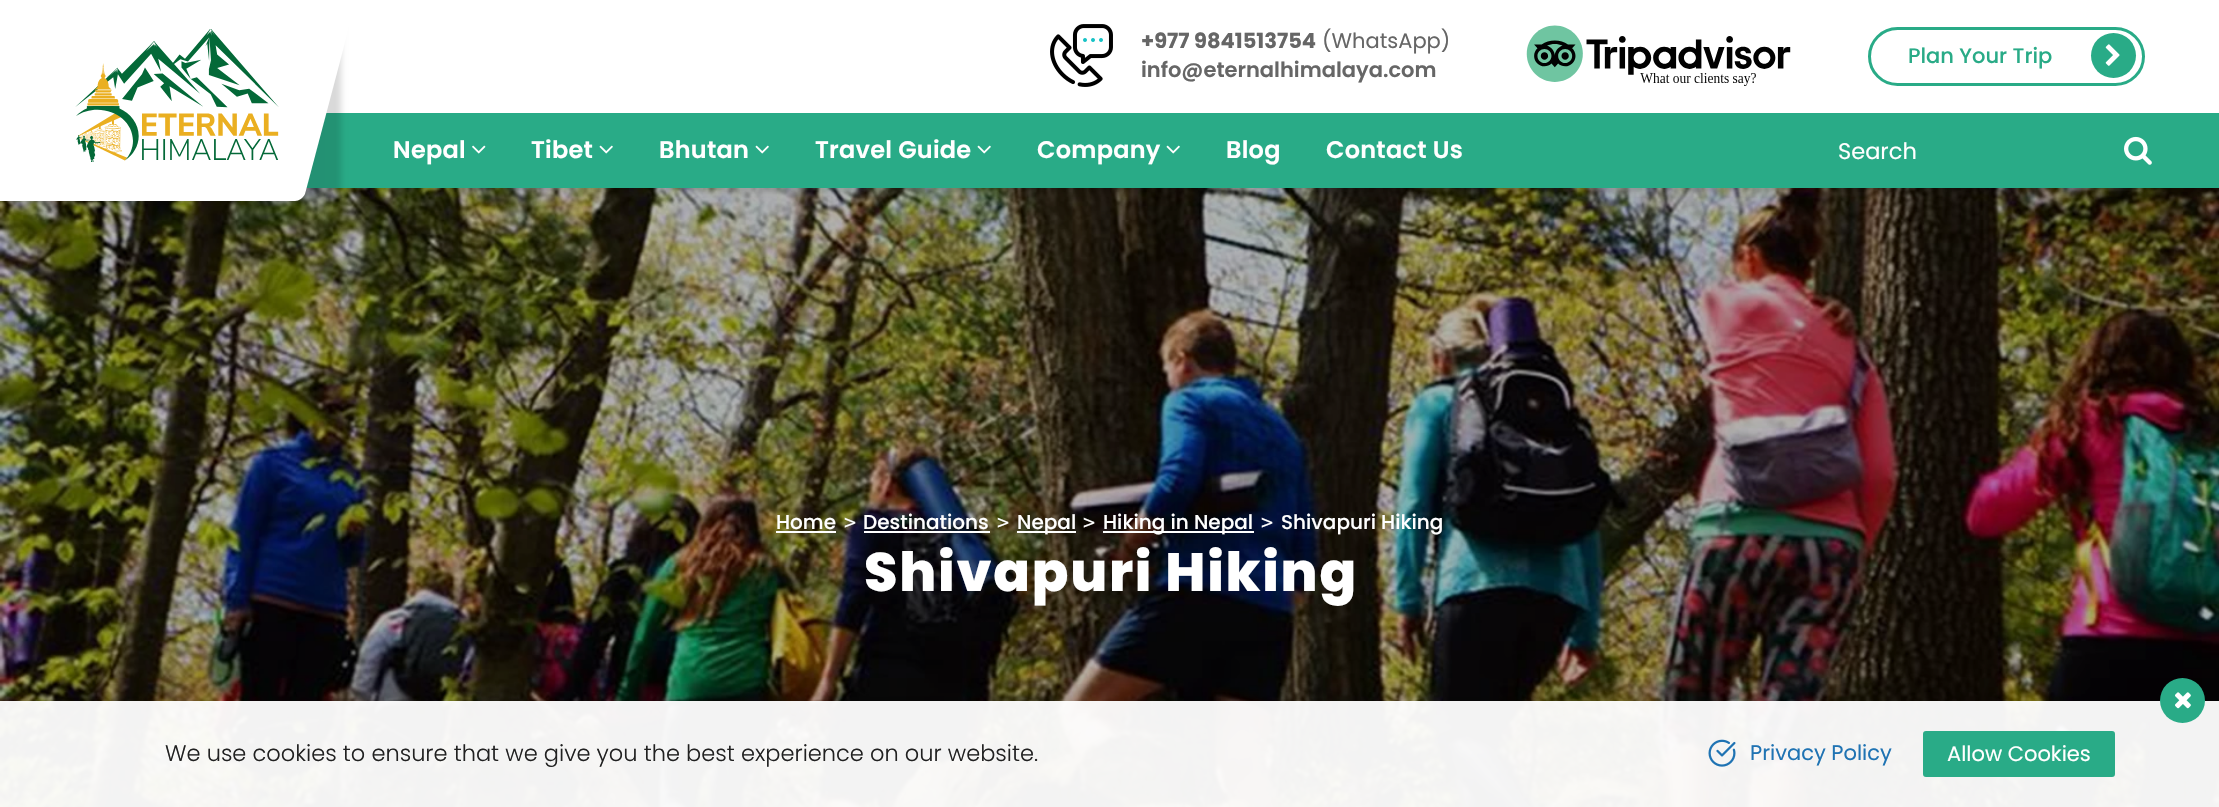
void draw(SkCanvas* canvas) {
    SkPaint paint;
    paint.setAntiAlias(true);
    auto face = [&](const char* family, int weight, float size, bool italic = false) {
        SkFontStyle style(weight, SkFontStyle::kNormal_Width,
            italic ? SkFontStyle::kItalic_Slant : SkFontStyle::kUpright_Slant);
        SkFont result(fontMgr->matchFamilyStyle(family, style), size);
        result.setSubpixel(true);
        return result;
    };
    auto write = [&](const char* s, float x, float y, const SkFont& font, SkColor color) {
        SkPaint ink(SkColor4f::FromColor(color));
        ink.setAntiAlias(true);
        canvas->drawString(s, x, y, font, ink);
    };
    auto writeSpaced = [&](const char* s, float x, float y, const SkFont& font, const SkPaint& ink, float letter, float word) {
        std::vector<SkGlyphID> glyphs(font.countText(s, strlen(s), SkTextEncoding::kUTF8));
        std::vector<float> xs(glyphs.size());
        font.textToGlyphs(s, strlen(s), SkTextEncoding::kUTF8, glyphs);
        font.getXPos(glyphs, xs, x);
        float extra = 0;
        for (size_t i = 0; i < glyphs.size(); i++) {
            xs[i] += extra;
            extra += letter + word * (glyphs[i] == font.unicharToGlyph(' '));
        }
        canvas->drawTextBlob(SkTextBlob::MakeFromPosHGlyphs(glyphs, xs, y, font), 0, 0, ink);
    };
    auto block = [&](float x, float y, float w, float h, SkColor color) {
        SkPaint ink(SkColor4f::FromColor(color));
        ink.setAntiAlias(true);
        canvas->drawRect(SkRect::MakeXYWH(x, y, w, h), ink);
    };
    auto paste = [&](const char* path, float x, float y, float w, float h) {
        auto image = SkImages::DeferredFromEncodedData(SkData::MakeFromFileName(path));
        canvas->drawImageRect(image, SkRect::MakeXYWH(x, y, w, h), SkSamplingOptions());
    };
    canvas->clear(SK_ColorWHITE);
    paste("pic8.png", 0, 188, 2219, 619);
    paint.setColor(SkColorSetARGB(26, 0, 0, 0));
    paint.setMaskFilter(SkMaskFilter::MakeBlur(kNormal_SkBlurStyle, 2));
    canvas->drawRect(SkRect::MakeXYWH(-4, -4, 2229, 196), paint);
    paint.setMaskFilter(nullptr);
    block(326, 0, 1893, 113, SK_ColorWHITE);
    block(306, 113, 1913, 75, SkColorSetRGB(41, 171, 135));
    paint.setColor(SkColorSetARGB(38, 0, 0, 0));
    paint.setMaskFilter(SkMaskFilter::MakeBlur(kNormal_SkBlurStyle, 3));
    canvas->drawRoundRect(SkRect::MakeXYWH(-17, -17, 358, 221), 8, 8, paint);
    paint.setMaskFilter(nullptr);
    paint.setColor(SK_ColorWHITE);
    canvas->drawPath(SkPathBuilder().moveTo(-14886, -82).lineTo(378, -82).lineTo(305, 194).cubicTo(303, 198, 299, 201, 295, 201).lineTo(-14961, 201).close().detach(), paint);
    paste("pic1.png", 75, 29, 204, 133);
    paste("pic2.png", 1050, 24, 63, 63);
    auto kFont1 = face("Poppins", 700, 21);
    write("+977 9841513754", 1141, 48, kFont1, SkColorSetRGB(102, 102, 102));
    auto kFont2 = face("Poppins", 400, 21);
    write("(WhatsApp)", 1322, 48, kFont2, SkColorSetRGB(102, 102, 102));
    auto kFont3 = face("Poppins", 600, 21);
    write("info@eternalhimalaya.com", 1141, 77, kFont3, SkColorSetRGB(102, 102, 102));
    paste("pic3.png", 1526, 25, 265, 61);
    paint.setStyle(SkPaint::kStroke_Style);
    paint.setStrokeWidth(3);
    paint.setColor(SkColorSetRGB(41, 171, 135));
    canvas->drawRoundRect(SkRect::MakeXYWH(1869.5f, 28.5f, 274, 56), 28, 28, paint);
    auto kFont4 = face("Poppins", 500, 21);
    write("Plan Your Trip", 1908, 63, kFont4, SkColorSetRGB(41, 171, 135));
    paint.setStyle(SkPaint::kFill_Style);
    canvas->drawCircle(2113.5f, 55.5f, 22.5f, paint);
    paste("pic4.png", 2105, 44, 15, 22);
    auto kFont5 = face("Poppins", 600, 24);
    paint.setColor(SK_ColorWHITE);
    writeSpaced("Nepal", 393, 158, kFont5, paint, 0.25f, 0);
    paste("pic5.png", 472, 145, 14, 9);
    writeSpaced("Tibet", 531, 158, kFont5, paint, 0.25f, 0);
    paste("pic6.png", 599, 145, 14, 9);
    writeSpaced("Bhutan", 659, 158, kFont5, paint, 0.25f, 0);
    paste("pic6.png", 755, 145, 14, 9);
    writeSpaced("Travel Guide", 815, 158, kFont5, paint, 0.25f, 0);
    paste("pic6.png", 977, 145, 14, 9);
    writeSpaced("Company", 1037, 158, kFont5, paint, 0.25f, 0);
    paste("pic6.png", 1166, 145, 14, 9);
    writeSpaced("Blog", 1226, 158, kFont5, paint, 0.25f, 0);
    writeSpaced("Contact Us", 1326, 158, kFont5, paint, 0.25f, 0);
    auto kFont6 = face("Poppins", 400, 22.5f);
    write("Search", 1838, 159, kFont6, SK_ColorWHITE);
    paste("pic7.png", 2124, 136, 28, 29);
    auto kFont7 = face("Poppins", 500, 20);
    write("Home", 776, 529, kFont7, SK_ColorWHITE);
    block(776, 531, 60, 2, SK_ColorWHITE);
    auto kFont8 = face("DejaVu Sans Mono", 400, 20);
    write(">", 844, 529, kFont8, SK_ColorWHITE);
    write("Destinations", 863, 529, kFont7, SK_ColorWHITE);
    block(864, 531, 126, 2, SK_ColorWHITE);
    write(">", 997, 529, kFont8, SK_ColorWHITE);
    block(1017, 531, 59, 2, SK_ColorWHITE);
    write("Nepal", 1017, 529, kFont7, SK_ColorWHITE);
    write(">", 1083, 529, kFont8, SK_ColorWHITE);
    block(1103, 531, 151, 2, SK_ColorWHITE);
    write("Hiking in Nepal", 1103, 529, kFont7, SK_ColorWHITE);
    write(">", 1261, 529, kFont8, SK_ColorWHITE);
    write("Shivapuri Hiking", 1281, 529, kFont7, SK_ColorWHITE);
    auto kFont9 = face("Poppins", 800, 54);
    writeSpaced("Shivapuri Hiking", 864, 591, kFont9, paint, 1.75f, 0);
    canvas->save();
    canvas->clipRect(SkRect::MakeXYWH(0, 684, 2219, 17));
    paint.setColor(SkColorSetARGB(38, 0, 0, 0));
    paint.setMaskFilter(SkMaskFilter::MakeBlur(kNormal_SkBlurStyle, 15));
    canvas->drawRect(SkRect::MakeXYWH(0, 701, 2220, 106), paint);
    paint.setMaskFilter(nullptr);
    canvas->restore();
    block(0, 701, 2219, 106, SkColorSetARGB(242, 255, 255, 255));
    paint.setColor(SkColorSetRGB(41, 171, 135));
    canvas->drawCircle(2182.5f, 700.5f, 22.5f, paint);
    paste("pic9.png", 2175, 692, 16, 17);
    auto kFont10 = face("Poppins", 300, 22.5f);
    write("We use cookies to ensure that we give you the best experience on our website.", 165, 761, kFont10, SkColorSetRGB(33, 33, 33));
    paste("pic10.png", 1708, 739, 28, 28);
    write("Privacy Policy", 1750, 760, kFont2, SkColorSetRGB(31, 115, 179));
    canvas->drawRoundRect(SkRect::MakeXYWH(1924, 732, 190, 44), 2, 2, paint);
    paint.setStyle(SkPaint::kStroke_Style);
    paint.setStrokeWidth(2);
    canvas->drawRoundRect(SkRect::MakeXYWH(1924, 732, 190, 44), 2, 2, paint);
    write("Allow Cookies", 1947, 761, kFont2, SK_ColorWHITE);
}
